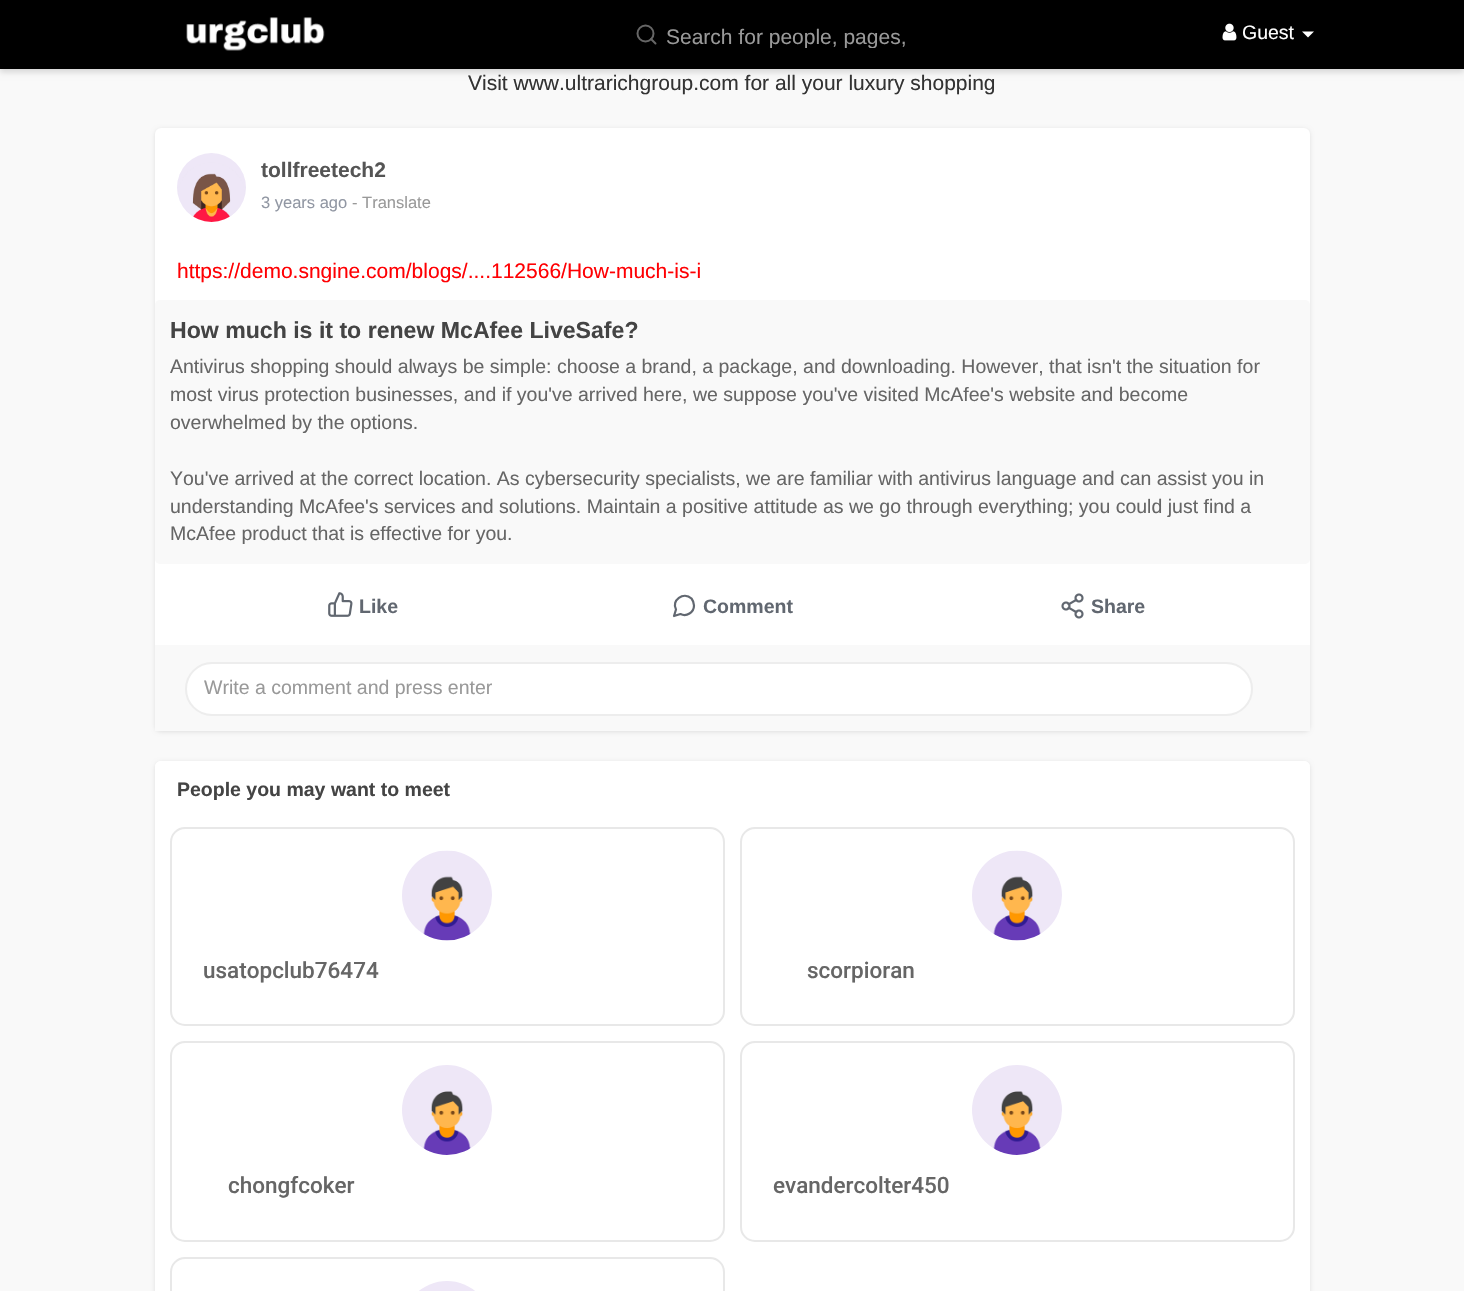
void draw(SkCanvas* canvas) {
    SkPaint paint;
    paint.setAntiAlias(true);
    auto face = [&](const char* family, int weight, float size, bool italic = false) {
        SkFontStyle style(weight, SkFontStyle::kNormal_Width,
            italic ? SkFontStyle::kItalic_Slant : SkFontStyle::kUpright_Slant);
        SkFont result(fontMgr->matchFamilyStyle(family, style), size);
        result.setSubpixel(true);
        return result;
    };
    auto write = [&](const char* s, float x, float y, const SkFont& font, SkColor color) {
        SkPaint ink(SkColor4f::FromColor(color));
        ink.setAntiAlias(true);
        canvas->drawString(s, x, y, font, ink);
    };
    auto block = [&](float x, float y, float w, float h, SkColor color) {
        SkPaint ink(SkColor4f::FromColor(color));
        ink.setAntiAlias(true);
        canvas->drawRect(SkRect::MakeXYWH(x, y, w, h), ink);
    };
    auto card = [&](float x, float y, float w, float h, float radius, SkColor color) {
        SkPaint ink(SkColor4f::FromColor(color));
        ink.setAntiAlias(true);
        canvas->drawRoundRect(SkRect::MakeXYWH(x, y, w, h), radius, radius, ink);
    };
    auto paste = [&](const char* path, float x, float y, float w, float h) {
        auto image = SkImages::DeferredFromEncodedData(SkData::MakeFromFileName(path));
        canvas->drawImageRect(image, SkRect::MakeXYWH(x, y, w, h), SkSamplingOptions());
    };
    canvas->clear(SkColorSetRGB(249, 249, 249));
    paint.setColor(SkColorSetARGB(38, 0, 0, 0));
    paint.setMaskFilter(SkMaskFilter::MakeBlur(kNormal_SkBlurStyle, 3));
    canvas->drawRect(SkRect::MakeXYWH(0, 3, 1464, 69), paint);
    paint.setMaskFilter(nullptr);
    block(0, 0, 1464, 69, SK_ColorBLACK);
    paste("pic1.png", 186, 17, 139, 34);
    paint.setStyle(SkPaint::kStroke_Style);
    paint.setStrokeWidth(2);
    paint.setColor(SkColorSetRGB(102, 102, 102));
    canvas->drawCircle(645.5f, 33.5f, 8, paint);
    paint.setStrokeCap(SkPaint::kRound_Cap);
    paint.setStrokeJoin(SkPaint::kRound_Join);
    canvas->drawPath(SkPathBuilder().moveTo(655.5f, 43.5f).lineTo(651, 39).detach(), paint);
    canvas->save();
    canvas->clipRect(SkRect::MakeXYWH(666, 24, 242, 24));
    auto kFont1 = face("Liberation Sans", 400, 21);
    write("Search for people, pages,", 666, 44, kFont1, SkColorSetRGB(153, 153, 153));
    canvas->restore();
    paste("pic2.png", 1222, 23, 15, 18);
    auto kFont2 = face("Liberation Sans", 400, 19.5f);
    write("Guest", 1242, 39, kFont2, SK_ColorWHITE);
    paint.setStyle(SkPaint::kFill_Style);
    paint.setColor(SK_ColorWHITE);
    canvas->drawPath(SkPathBuilder().moveTo(1302, 31.5f).lineTo(1314, 31.5f).lineTo(1308, 37.5f).close().detach(), paint);
    write("Visit www.ultrarichgroup.com for all your luxury shopping", 468, 90, kFont1, SkColorSetRGB(51, 51, 51));
    paint.setColor(SkColorSetARGB(26, 0, 0, 0));
    paint.setMaskFilter(SkMaskFilter::MakeBlur(kNormal_SkBlurStyle, 2));
    canvas->drawRoundRect(SkRect::MakeXYWH(155, 129, 1155, 603), 6, 6, paint);
    paint.setMaskFilter(nullptr);
    card(155, 128, 1155, 603, 6, SK_ColorWHITE);
    paste("pic3.png", 177, 153, 69, 69);
    auto kFont3 = face("Liberation Sans", 700, 21);
    write("tollfreetech2", 261, 177, kFont3, SkColorSetRGB(85, 85, 85));
    auto kFont4 = face("Liberation Sans", 400, 16.5f);
    write("3 years ago", 261, 208, kFont4, SkColorSetRGB(145, 151, 163));
    write("- Translate", 352, 208, kFont4, SkColorSetRGB(153, 153, 153));
    write("https://demo.sngine.com/blogs/....112566/How-much-is-i", 177, 278, kFont1, SkColorSetRGB(255, 0, 3));
    card(155, 300, 1155, 264, 5, SkColorSetRGB(249, 249, 249));
    auto kFont5 = face("Liberation Sans", 700, 23.1f);
    write("How much is it to renew McAfee LiveSafe?", 170, 338, kFont5, SkColorSetRGB(68, 68, 68));
    write("Antivirus shopping should always be simple: choose a brand, a package, and downloading. However, that isn't the situation for", 170, 373, kFont2, SkColorSetRGB(102, 102, 102));
    write("most virus protection businesses, and if you've arrived here, we suppose you've visited McAfee's website and become", 170, 401, kFont2, SkColorSetRGB(102, 102, 102));
    write("overwhelmed by the options.", 170, 429, kFont2, SkColorSetRGB(102, 102, 102));
    write("You've arrived at the correct location. As cybersecurity specialists, we are familiar with antivirus language and can assist you in", 170, 485, kFont2, SkColorSetRGB(102, 102, 102));
    write("understanding McAfee's services and solutions. Maintain a positive attitude as we go through everything; you could just find a", 170, 513, kFont2, SkColorSetRGB(102, 102, 102));
    write("McAfee product that is effective for you.", 170, 540, kFont2, SkColorSetRGB(102, 102, 102));
    paste("pic4.png", 328, 592, 25, 25);
    auto kFont6 = face("Liberation Sans", 700, 19.5f);
    write("Like", 359, 613, kFont6, SkColorSetRGB(97, 103, 112));
    paint.setStyle(SkPaint::kStroke_Style);
    paint.setStrokeWidth(2.2f);
    paint.setColor(SkColorSetRGB(97, 103, 112));
    canvas->drawPath(SkPathBuilder().moveTo(694, 605.5f).cubicTo(694, 612.5f, 686.5f, 617, 680.5f, 614).lineTo(674, 616).lineTo(676, 609.5f).cubicTo(671, 600.5f, 683.5f, 591, 691.5f, 598.5f).cubicTo(693, 600.5f, 694, 603, 694, 605.5f).close().detach(), paint);
    write("Comment", 703, 613, kFont6, SkColorSetRGB(97, 103, 112));
    paste("pic5.png", 1061, 593, 23, 26);
    write("Share", 1091, 613, kFont6, SkColorSetRGB(97, 103, 112));
    block(155, 645, 1155, 86, SkColorSetRGB(249, 249, 249));
    paint.setStyle(SkPaint::kFill_Style);
    paint.setColor(SK_ColorWHITE);
    canvas->drawRoundRect(SkRect::MakeXYWH(186, 663, 1066, 52), 26, 26, paint);
    paint.setStyle(SkPaint::kStroke_Style);
    paint.setStrokeWidth(2);
    paint.setStrokeCap(SkPaint::kButt_Cap);
    paint.setStrokeJoin(SkPaint::kMiter_Join);
    paint.setColor(SkColorSetRGB(237, 237, 237));
    canvas->drawRoundRect(SkRect::MakeXYWH(186, 663, 1066, 52), 26, 26, paint);
    write("Write a comment and press enter", 204, 694, kFont2, SkColorSetRGB(153, 153, 153));
    paint.setStyle(SkPaint::kFill_Style);
    paint.setColor(SkColorSetARGB(26, 0, 0, 0));
    paint.setMaskFilter(SkMaskFilter::MakeBlur(kNormal_SkBlurStyle, 2));
    canvas->drawRoundRect(SkRect::MakeXYWH(155, 762, 1155, 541), 6, 6, paint);
    paint.setMaskFilter(nullptr);
    card(155, 761, 1155, 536, 6, SK_ColorWHITE);
    paint.setColor(SK_ColorWHITE);
    canvas->drawPath(SkPathBuilder().moveTo(161, 761).lineTo(1304, 761).cubicTo(1307.5f, 761, 1310, 763.5f, 1310, 767).lineTo(1310, 819).lineTo(155, 819).lineTo(155, 767).cubicTo(155, 763.5f, 157.5f, 761, 161, 761).close().detach(), paint);
    write("People you may want to meet", 177, 796, kFont6, SkColorSetRGB(68, 68, 68));
    paint.setStyle(SkPaint::kStroke_Style);
    paint.setColor(SkColorSetRGB(232, 232, 232));
    canvas->drawRoundRect(SkRect::MakeXYWH(171, 828, 553, 197), 14, 14, paint);
    paste("pic6.png", 402, 850, 90, 91);
    auto kFont7 = face("Roboto", 500, 22.5f);
    write("usatopclub76474", 203, 978, kFont7, SkColorSetRGB(102, 102, 102));
    canvas->drawRoundRect(SkRect::MakeXYWH(741, 828, 553, 197), 14, 14, paint);
    paste("pic7.png", 972, 850, 90, 91);
    write("scorpioran", 807, 978, kFont7, SkColorSetRGB(102, 102, 102));
    canvas->drawRoundRect(SkRect::MakeXYWH(171, 1042, 553, 199), 14, 14, paint);
    paste("pic8.png", 402, 1065, 90, 90);
    write("chongfcoker", 228, 1193, kFont7, SkColorSetRGB(102, 102, 102));
    canvas->drawRoundRect(SkRect::MakeXYWH(741, 1042, 553, 199), 14, 14, paint);
    paste("pic9.png", 972, 1065, 90, 90);
    write("evandercolter450", 773, 1193, kFont7, SkColorSetRGB(102, 102, 102));
    canvas->drawRoundRect(SkRect::MakeXYWH(171, 1258, 553, 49), 14, 14, paint);
    paste("pic10.png", 419, 1281, 56, 10);
}
